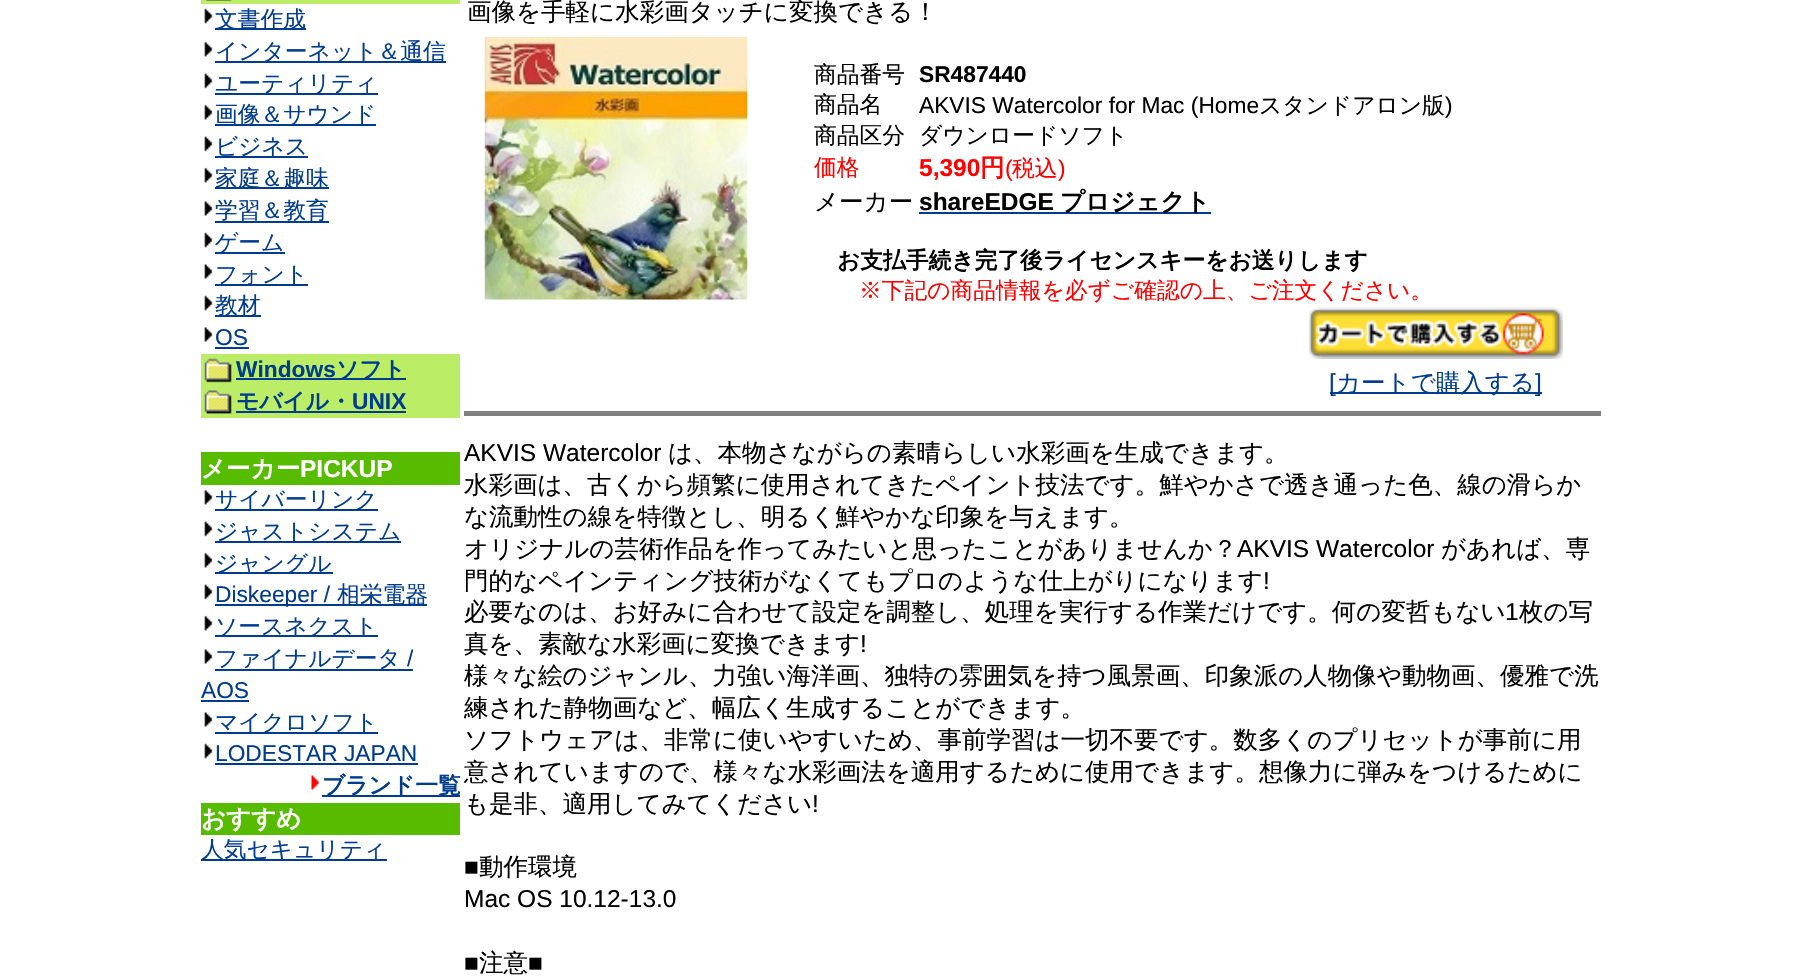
void draw(SkCanvas* canvas) {
    SkPaint paint;
    paint.setAntiAlias(true);
    auto face = [&](const char* family, int weight, float size, bool italic = false) {
        SkFontStyle style(weight, SkFontStyle::kNormal_Width,
            italic ? SkFontStyle::kItalic_Slant : SkFontStyle::kUpright_Slant);
        SkFont result(fontMgr->matchFamilyStyle(family, style), size);
        result.setSubpixel(true);
        return result;
    };
    auto write = [&](const char* s, float x, float y, const SkFont& font, SkColor color) {
        SkPaint ink(SkColor4f::FromColor(color));
        ink.setAntiAlias(true);
        canvas->drawString(s, x, y, font, ink);
    };
    auto block = [&](float x, float y, float w, float h, SkColor color) {
        SkPaint ink(SkColor4f::FromColor(color));
        ink.setAntiAlias(true);
        canvas->drawRect(SkRect::MakeXYWH(x, y, w, h), ink);
    };
    auto paste = [&](const char* path, float x, float y, float w, float h) {
        auto image = SkImages::DeferredFromEncodedData(SkData::MakeFromFileName(path));
        canvas->drawImageRect(image, SkRect::MakeXYWH(x, y, w, h), SkSamplingOptions());
    };
    canvas->clear(SK_ColorWHITE);
    block(201, 0, 259, 4, SkColorSetRGB(187, 238, 102));
    paste("pic1.png", 206, 0, 26, 1);
    paste("pic2.png", 204, 8, 9, 16);
    block(215, 28, 91, 2, SkColorSetRGB(0, 60, 142));
    auto kFont1 = face("WenQuanYi Zen Hei", 500, 22.75f);
    write("文書作成", 215, 27, kFont1, SkColorSetRGB(0, 60, 142));
    paste("pic3.png", 204, 41, 9, 16);
    block(215, 61, 231, 2, SkColorSetRGB(0, 60, 142));
    write("インターネット＆通信", 215, 59, kFont1, SkColorSetRGB(0, 60, 142));
    paste("pic4.png", 204, 73, 9, 16);
    block(215, 93, 163, 2, SkColorSetRGB(0, 60, 142));
    write("ユーティリティ", 215, 91, kFont1, SkColorSetRGB(0, 60, 142));
    paste("pic3.png", 204, 104, 9, 16);
    block(215, 124, 161, 2, SkColorSetRGB(0, 60, 142));
    write("画像＆サウンド", 215, 122, kFont1, SkColorSetRGB(0, 60, 142));
    paste("pic4.png", 204, 136, 9, 16);
    block(215, 156, 93, 2, SkColorSetRGB(0, 60, 142));
    write("ビジネス", 215, 154, kFont1, SkColorSetRGB(0, 60, 142));
    paste("pic3.png", 204, 167, 9, 16);
    block(215, 187, 114, 2, SkColorSetRGB(0, 60, 142));
    write("家庭＆趣味", 215, 186, kFont1, SkColorSetRGB(0, 60, 142));
    paste("pic5.png", 204, 201, 9, 15);
    block(215, 221, 114, 2, SkColorSetRGB(0, 60, 142));
    write("学習＆教育", 215, 218, kFont1, SkColorSetRGB(0, 60, 142));
    paste("pic2.png", 204, 232, 9, 16);
    block(215, 252, 70, 2, SkColorSetRGB(0, 60, 142));
    write("ゲーム", 215, 250, kFont1, SkColorSetRGB(0, 60, 142));
    paste("pic5.png", 204, 264, 9, 15);
    block(215, 284, 93, 2, SkColorSetRGB(0, 60, 142));
    write("フォント", 215, 282, kFont1, SkColorSetRGB(0, 60, 142));
    paste("pic2.png", 204, 295, 9, 16);
    block(215, 315, 46, 2, SkColorSetRGB(0, 60, 142));
    write("教材", 215, 313, kFont1, SkColorSetRGB(0, 60, 142));
    paste("pic5.png", 204, 327, 9, 15);
    auto kFont2 = face("Liberation Sans", 400, 22.75f);
    write("OS", 215, 345, kFont2, SkColorSetRGB(0, 60, 142));
    block(215, 347, 34, 2, SkColorSetRGB(0, 60, 142));
    block(201, 354, 259, 64, SkColorSetRGB(187, 238, 102));
    paste("pic6.png", 204, 358, 28, 25);
    auto kFont3 = face("Liberation Sans", 700, 22.75f);
    write("Windows", 236, 377, kFont3, SkColorSetRGB(0, 60, 142));
    block(236, 378, 170, 2, SkColorSetRGB(0, 60, 142));
    auto kFont4 = face("WenQuanYi Zen Hei", 700, 22.75f);
    write("ソフト", 336, 377, kFont4, SkColorSetRGB(0, 60, 142));
    paste("pic7.png", 204, 390, 28, 24);
    block(236, 411, 170, 2, SkColorSetRGB(0, 60, 142));
    write("モバイル・", 236, 409, kFont4, SkColorSetRGB(0, 60, 142));
    write("UNIX", 352, 409, kFont3, SkColorSetRGB(0, 60, 142));
    block(201, 452, 259, 383, SkColorSetRGB(87, 187, 0));
    auto kFont5 = face("WenQuanYi Zen Hei", 700, 24.5f);
    write("メーカー", 201, 477, kFont5, SK_ColorWHITE);
    auto kFont6 = face("Liberation Sans", 700, 24.5f);
    write("PICKUP", 300, 477, kFont6, SK_ColorWHITE);
    block(201, 485, 259, 318, SK_ColorWHITE);
    paste("pic3.png", 204, 489, 9, 16);
    block(215, 509, 163, 2, SkColorSetRGB(0, 60, 142));
    write("サイバーリンク", 215, 507, kFont1, SkColorSetRGB(0, 60, 142));
    paste("pic4.png", 204, 521, 9, 16);
    block(215, 541, 186, 2, SkColorSetRGB(0, 60, 142));
    write("ジャストシステム", 215, 539, kFont1, SkColorSetRGB(0, 60, 142));
    paste("pic3.png", 204, 552, 9, 16);
    block(215, 572, 118, 2, SkColorSetRGB(0, 60, 142));
    write("ジャングル", 215, 571, kFont1, SkColorSetRGB(0, 60, 142));
    paste("pic4.png", 204, 584, 9, 16);
    block(215, 604, 212, 2, SkColorSetRGB(0, 60, 142));
    write("Diskeeper /", 215, 602, kFont2, SkColorSetRGB(0, 60, 142));
    write("相栄電器", 337, 602, kFont1, SkColorSetRGB(0, 60, 142));
    paste("pic3.png", 204, 615, 9, 16);
    block(215, 635, 163, 2, SkColorSetRGB(0, 60, 142));
    write("ソースネクスト", 215, 634, kFont1, SkColorSetRGB(0, 60, 142));
    paste("pic5.png", 204, 649, 9, 15);
    block(215, 669, 198, 2, SkColorSetRGB(0, 60, 142));
    write("ファイナルデータ", 215, 666, kFont1, SkColorSetRGB(0, 60, 142));
    write("/", 407, 666, kFont2, SkColorSetRGB(0, 60, 142));
    write("AOS", 201, 698, kFont2, SkColorSetRGB(0, 60, 142));
    block(201, 700, 48, 2, SkColorSetRGB(0, 60, 142));
    paste("pic5.png", 204, 712, 9, 15);
    block(215, 732, 163, 2, SkColorSetRGB(0, 60, 142));
    write("マイクロソフト", 215, 730, kFont1, SkColorSetRGB(0, 60, 142));
    paste("pic2.png", 204, 743, 9, 16);
    write("LODESTAR JAPAN", 215, 761, kFont2, SkColorSetRGB(0, 60, 142));
    block(215, 763, 203, 2, SkColorSetRGB(0, 60, 142));
    paste("pic8.png", 311, 775, 8, 15);
    block(322, 795, 138, 2, SkColorSetRGB(0, 60, 142));
    write("ブランド一覧", 322, 793, kFont4, SkColorSetRGB(0, 60, 142));
    write("おすすめ", 201, 827, kFont5, SK_ColorWHITE);
    block(201, 859, 186, 2, SkColorSetRGB(0, 60, 142));
    write("人気セキュリティ", 201, 857, kFont1, SkColorSetRGB(0, 60, 142));
    auto kFont7 = face("WenQuanYi Zen Hei", 500, 24.5f);
    write("画像を手軽に水彩画タッチに変換できる！", 467, 20, kFont7, SK_ColorBLACK);
    paste("pic9.png", 484, 37, 264, 263);
    write("商品番号", 814, 82, kFont1, SK_ColorBLACK);
    write("SR487440", 919, 82, kFont3, SK_ColorBLACK);
    write("商品名", 814, 112, kFont1, SK_ColorBLACK);
    write("AKVIS Watercolor for Mac (Home", 919, 113, kFont2, SK_ColorBLACK);
    write("スタンドアロン版", 1259, 113, kFont1, SK_ColorBLACK);
    write(")", 1445, 113, kFont2, SK_ColorBLACK);
    write("商品区分", 814, 143, kFont1, SK_ColorBLACK);
    write("ダウンロードソフト", 919, 143, kFont1, SK_ColorBLACK);
    write("価格", 814, 175, kFont1, SkColorSetRGB(255, 0, 0));
    write("5,390", 919, 176, kFont6, SkColorSetRGB(255, 0, 0));
    write("円", 980, 176, kFont5, SkColorSetRGB(255, 0, 0));
    write("(", 1005, 176, kFont2, SkColorSetRGB(255, 0, 0));
    write("税込", 1012, 176, kFont1, SkColorSetRGB(255, 0, 0));
    write(")", 1058, 176, kFont2, SkColorSetRGB(255, 0, 0));
    write("メーカー", 814, 210, kFont7, SK_ColorBLACK);
    write("shareEDGE", 919, 210, kFont6, SK_ColorBLACK);
    block(919, 212, 292, 2, SkColorSetRGB(0, 60, 142));
    write("プロジェクト", 1060, 210, kFont5, SK_ColorBLACK);
    write("お支払手続き完了後ライセンスキーをお送りします", 837, 268, kFont4, SK_ColorBLACK);
    write("※下記の商品情報を必ずご確認の上、ご注文ください。", 859, 298, kFont1, SkColorSetRGB(255, 0, 0));
    paste("pic10.png", 1309, 306, 254, 53);
    block(1330, 392, 212, 2, SkColorSetRGB(0, 60, 142));
    auto kFont8 = face("Liberation Sans", 400, 24.5f);
    write("[", 1329, 391, kFont8, SkColorSetRGB(0, 60, 142));
    write("カートで購入する", 1336, 391, kFont7, SkColorSetRGB(0, 60, 142));
    write("]", 1535, 391, kFont8, SkColorSetRGB(0, 60, 142));
    block(464, 411, 1137, 5, SkColorSetRGB(128, 128, 128));
    write("AKVIS Watercolor", 464, 461, kFont8, SK_ColorBLACK);
    write("は、本物さながらの素晴らしい水彩画を生成できます。", 668, 461, kFont7, SK_ColorBLACK);
    write("水彩画は、古くから頻繁に使用されてきたペイント技法です。鮮やかさで透き通った色、線の滑らか", 464, 493, kFont7, SK_ColorBLACK);
    write("な流動性の線を特徴とし、明るく鮮やかな印象を与えます。", 464, 525, kFont7, SK_ColorBLACK);
    write("オリジナルの芸術作品を作ってみたいと思ったことがありませんか？", 464, 557, kFont7, SK_ColorBLACK);
    write("AKVIS Watercolor", 1237, 557, kFont8, SK_ColorBLACK);
    write("があれば、専", 1441, 557, kFont7, SK_ColorBLACK);
    write("門的なペインティング技術がなくてもプロのような仕上がりになります", 464, 589, kFont7, SK_ColorBLACK);
    write("!", 1263, 589, kFont8, SK_ColorBLACK);
    write("必要なのは、お好みに合わせて設定を調整し、処理を実行する作業だけです。何の変哲もない", 464, 620, kFont7, SK_ColorBLACK);
    write("1", 1505, 620, kFont8, SK_ColorBLACK);
    write("枚の写", 1519, 620, kFont7, SK_ColorBLACK);
    write("真を、素敵な水彩画に変換できます", 464, 652, kFont7, SK_ColorBLACK);
    write("!", 860, 652, kFont8, SK_ColorBLACK);
    write("様々な絵のジャンル、力強い海洋画、独特の雰囲気を持つ風景画、印象派の人物像や動物画、優雅で洗", 464, 684, kFont7, SK_ColorBLACK);
    write("練された静物画など、幅広く生成することができます。", 464, 716, kFont7, SK_ColorBLACK);
    write("ソフトウェアは、非常に使いやすいため、事前学習は一切不要です。数多くのプリセットが事前に用", 464, 748, kFont7, SK_ColorBLACK);
    write("意されていますので、様々な水彩画法を適用するために使用できます。想像力に弾みをつけるために", 464, 780, kFont7, SK_ColorBLACK);
    write("も是非、適用してみてください", 464, 812, kFont7, SK_ColorBLACK);
    write("!", 812, 812, kFont8, SK_ColorBLACK);
    write("■", 464, 875, kFont8, SK_ColorBLACK);
    write("動作環境", 479, 875, kFont7, SK_ColorBLACK);
    write("Mac OS 10.12-13.0", 464, 907, kFont8, SK_ColorBLACK);
    write("■", 464, 971, kFont8, SK_ColorBLACK);
    write("注意", 479, 971, kFont7, SK_ColorBLACK);
    write("■", 528, 971, kFont8, SK_ColorBLACK);
}
